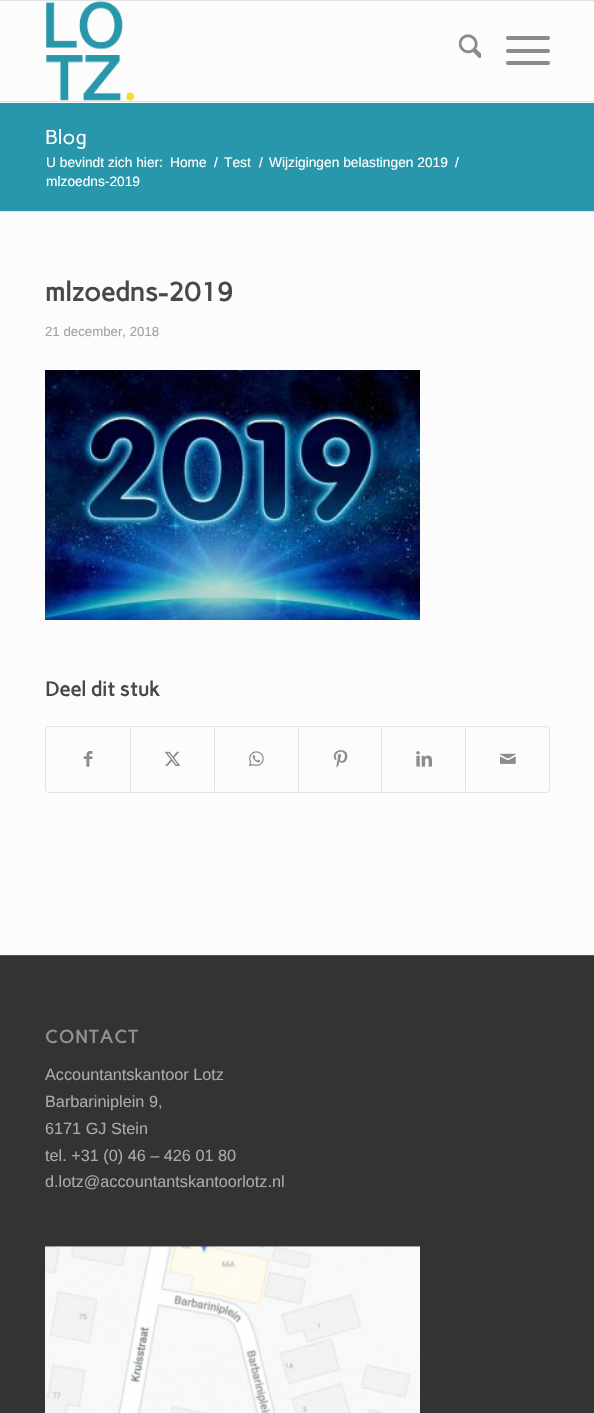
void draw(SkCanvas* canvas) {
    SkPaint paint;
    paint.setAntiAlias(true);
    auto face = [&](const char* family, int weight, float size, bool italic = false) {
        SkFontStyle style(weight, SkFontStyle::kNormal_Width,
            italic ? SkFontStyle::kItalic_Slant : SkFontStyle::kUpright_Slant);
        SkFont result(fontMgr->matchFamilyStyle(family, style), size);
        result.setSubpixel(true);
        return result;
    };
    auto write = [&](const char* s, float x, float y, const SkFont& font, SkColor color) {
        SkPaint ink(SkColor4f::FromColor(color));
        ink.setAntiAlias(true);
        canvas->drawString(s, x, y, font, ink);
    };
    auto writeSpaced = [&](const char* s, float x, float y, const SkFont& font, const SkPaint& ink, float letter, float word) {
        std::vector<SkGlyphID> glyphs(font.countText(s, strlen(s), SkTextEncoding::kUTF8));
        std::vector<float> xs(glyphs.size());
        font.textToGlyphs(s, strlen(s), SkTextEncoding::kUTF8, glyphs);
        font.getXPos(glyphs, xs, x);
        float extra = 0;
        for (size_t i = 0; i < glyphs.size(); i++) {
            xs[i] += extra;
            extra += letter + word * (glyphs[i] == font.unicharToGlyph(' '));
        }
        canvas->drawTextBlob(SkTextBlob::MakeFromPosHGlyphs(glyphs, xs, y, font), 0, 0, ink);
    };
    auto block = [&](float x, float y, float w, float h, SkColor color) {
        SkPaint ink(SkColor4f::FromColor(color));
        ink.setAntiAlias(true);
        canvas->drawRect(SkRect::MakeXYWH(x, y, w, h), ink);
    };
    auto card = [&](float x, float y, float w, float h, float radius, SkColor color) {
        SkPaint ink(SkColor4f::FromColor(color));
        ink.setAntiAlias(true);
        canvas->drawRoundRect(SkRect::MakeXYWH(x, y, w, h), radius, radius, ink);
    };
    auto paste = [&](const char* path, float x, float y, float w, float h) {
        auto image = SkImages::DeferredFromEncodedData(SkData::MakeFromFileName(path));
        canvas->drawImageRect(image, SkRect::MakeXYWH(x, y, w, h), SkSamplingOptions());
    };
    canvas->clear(SkColorSetRGB(252, 252, 252));
    block(0, 0, 594, 1, SkColorSetRGB(225, 225, 225));
    block(0, 101, 594, 1, SkColorSetRGB(225, 225, 225));
    paste("pic1.png", 46, 1, 89, 100);
    paste("pic2.png", 459, 34, 22, 25);
    card(506, 49, 44, 4, 2, SkColorSetRGB(139, 139, 142));
    card(506, 36, 44, 4, 2, SkColorSetRGB(139, 139, 142));
    card(506, 61, 44, 4, 2, SkColorSetRGB(139, 139, 142));
    block(0, 103, 594, 108, SkColorSetRGB(41, 151, 171));
    auto kFont1 = face("Carme", 400, 20);
    write("Blog", 45, 144, kFont1, SK_ColorWHITE);
    auto kFont2 = face("Liberation Sans", 400, 13.75f);
    write("U bevindt zich hier:", 46, 167, kFont2, SK_ColorWHITE);
    write("Home", 170, 167, kFont2, SK_ColorWHITE);
    write("/", 214, 167, kFont2, SK_ColorWHITE);
    write("Test", 224, 167, kFont2, SK_ColorWHITE);
    write("/", 259, 167, kFont2, SK_ColorWHITE);
    write("Wijzigingen belastingen 2019", 269, 167, kFont2, SK_ColorWHITE);
    write("/", 455, 167, kFont2, SK_ColorWHITE);
    write("mlzoedns-2019", 46, 186, kFont2, SK_ColorWHITE);
    block(0, 211, 594, 1, SkColorSetRGB(225, 225, 225));
    auto kFont3 = face("Carme", 700, 26.25f);
    write("mlzoedns-2019", 45, 301, kFont3, SkColorSetRGB(72, 72, 72));
    auto kFont4 = face("Liberation Sans", 400, 13.25f);
    write("21 december, 2018", 45, 336, kFont4, SkColorSetRGB(162, 162, 162));
    paste("pic3.png", 45, 370, 375, 250);
    auto kFont5 = face("Carme", 700, 20);
    write("Deel dit stuk", 45, 696, kFont5, SkColorSetRGB(72, 72, 72));
    paint.setStyle(SkPaint::kStroke_Style);
    paint.setStrokeWidth(1);
    paint.setColor(SkColorSetRGB(225, 225, 225));
    canvas->drawRoundRect(SkRect::MakeXYWH(45.5f, 726.5f, 504, 66), 3.5f, 3.5f, paint);
    paste("pic4.png", 83, 751, 10, 16);
    block(130, 728, 1, 63, SkColorSetRGB(225, 225, 225));
    paste("pic5.png", 164, 751, 17, 15);
    block(214, 728, 1, 63, SkColorSetRGB(225, 225, 225));
    paste("pic6.png", 248, 751, 16, 16);
    block(298, 728, 1, 63, SkColorSetRGB(225, 225, 225));
    paste("pic7.png", 333, 750, 15, 18);
    block(381, 728, 1, 63, SkColorSetRGB(225, 225, 225));
    paste("pic8.png", 416, 751, 16, 16);
    block(465, 728, 1, 63, SkColorSetRGB(225, 225, 225));
    paste("pic9.png", 500, 753, 16, 11);
    block(0, 956, 594, 457, SkColorSetRGB(51, 51, 51));
    block(0, 955, 594, 1, SkColorSetRGB(85, 85, 85));
    auto kFont6 = face("Carme", 700, 18);
    paint.setStyle(SkPaint::kFill_Style);
    paint.setColor(SkColorSetRGB(145, 145, 145));
    writeSpaced("CONTACT", 45, 1043, kFont6, paint, 1.25f, 0);
    auto kFont7 = face("Liberation Sans", 400, 16.25f);
    write("Accountantskantoor Lotz", 45, 1080, kFont7, SkColorSetRGB(170, 170, 170));
    write("Barbariniplein 9,", 45, 1107, kFont7, SkColorSetRGB(170, 170, 170));
    write("6171 GJ Stein", 45, 1134, kFont7, SkColorSetRGB(170, 170, 170));
    write("tel. +31 (0) 46 – 426 01 80", 45, 1161, kFont7, SkColorSetRGB(170, 170, 170));
    write("d.lotz@accountantskantoorlotz.nl", 45, 1187, kFont7, SkColorSetRGB(170, 170, 170));
    paste("pic10.png", 45, 1246, 375, 167);
}
